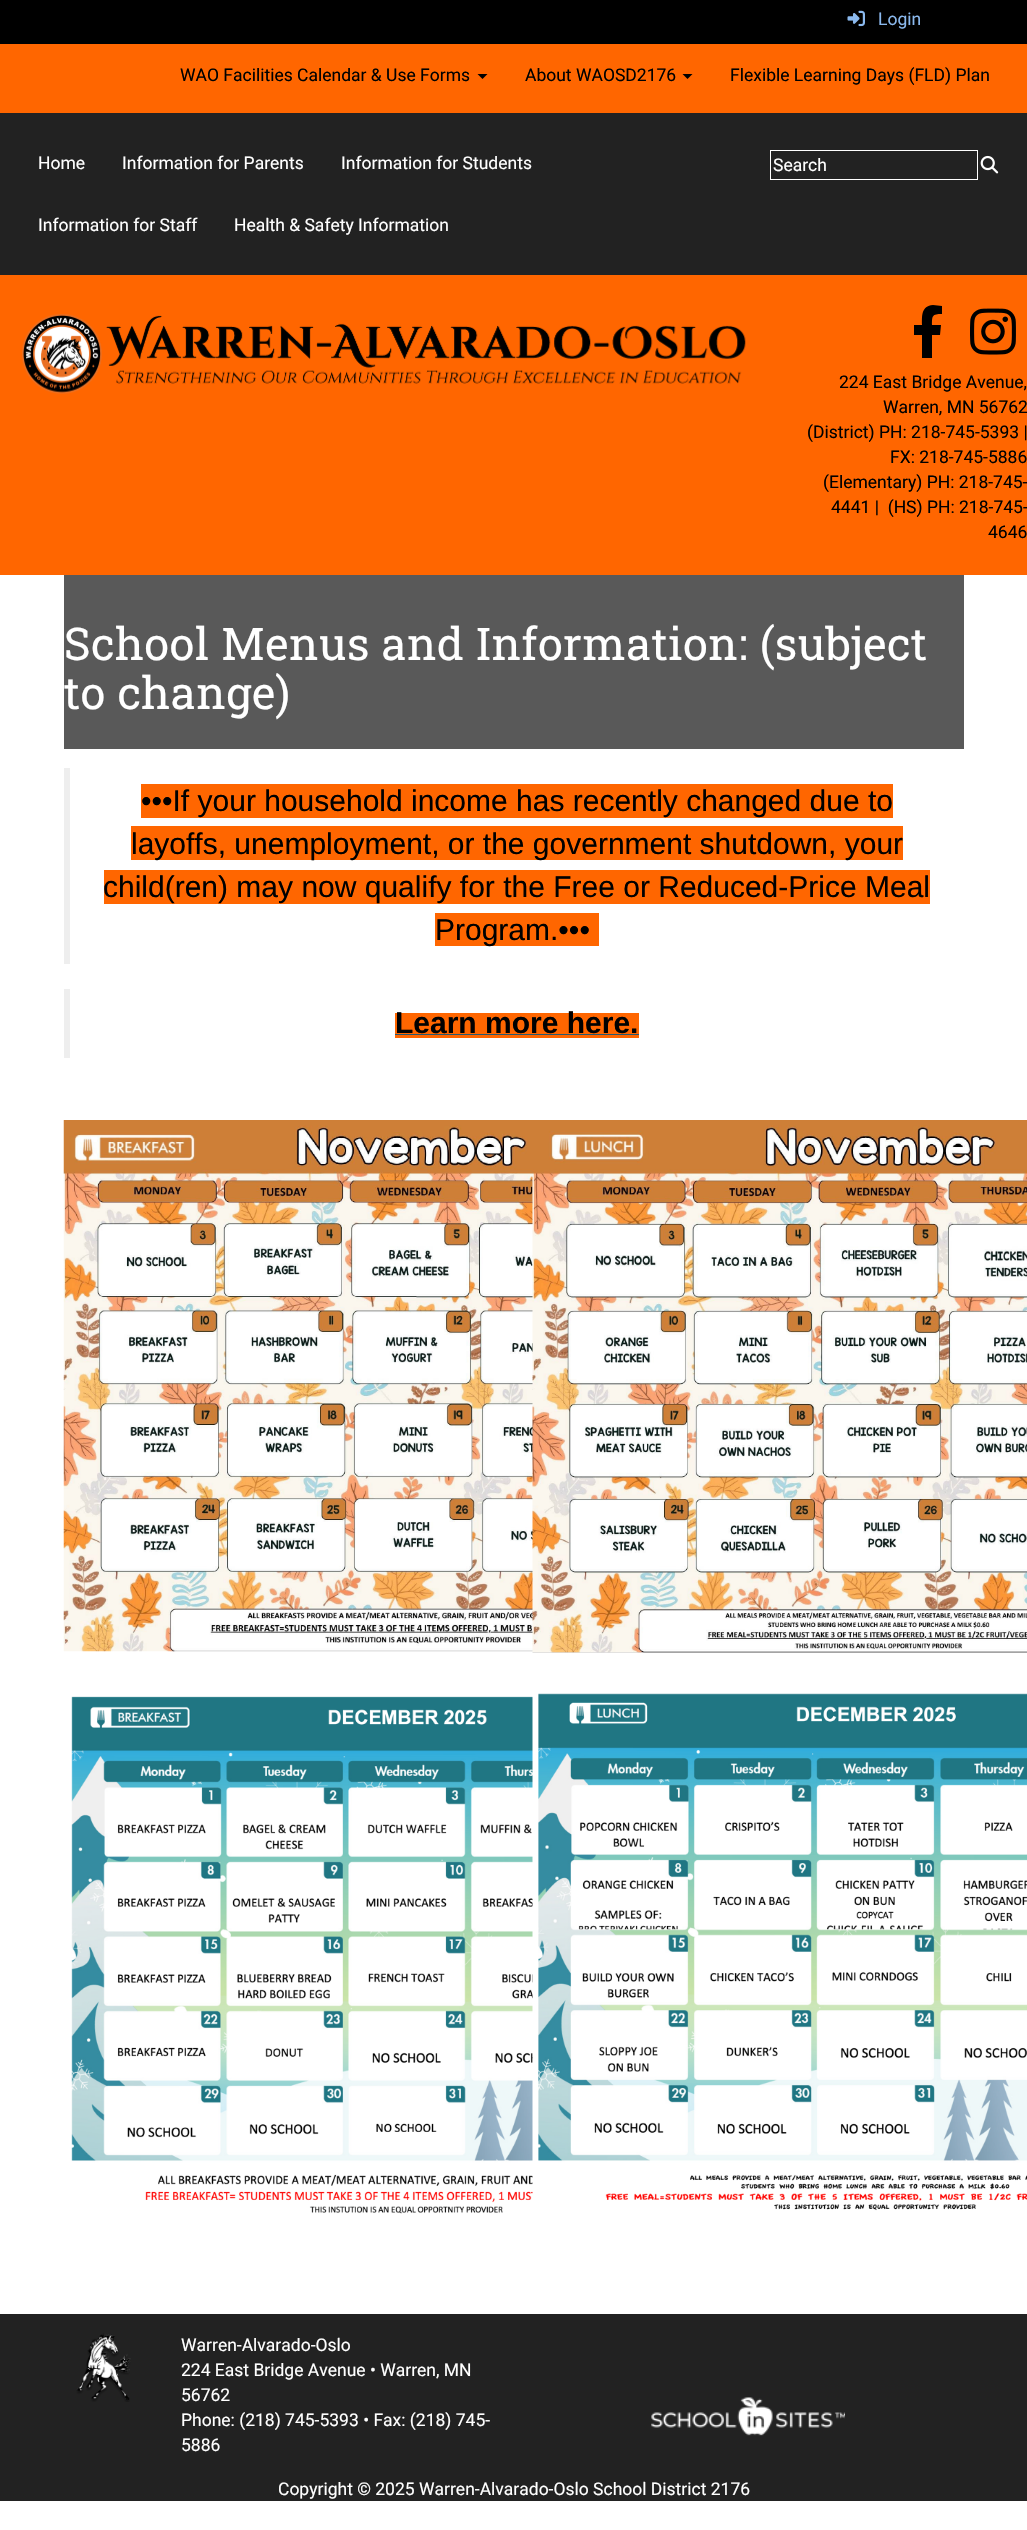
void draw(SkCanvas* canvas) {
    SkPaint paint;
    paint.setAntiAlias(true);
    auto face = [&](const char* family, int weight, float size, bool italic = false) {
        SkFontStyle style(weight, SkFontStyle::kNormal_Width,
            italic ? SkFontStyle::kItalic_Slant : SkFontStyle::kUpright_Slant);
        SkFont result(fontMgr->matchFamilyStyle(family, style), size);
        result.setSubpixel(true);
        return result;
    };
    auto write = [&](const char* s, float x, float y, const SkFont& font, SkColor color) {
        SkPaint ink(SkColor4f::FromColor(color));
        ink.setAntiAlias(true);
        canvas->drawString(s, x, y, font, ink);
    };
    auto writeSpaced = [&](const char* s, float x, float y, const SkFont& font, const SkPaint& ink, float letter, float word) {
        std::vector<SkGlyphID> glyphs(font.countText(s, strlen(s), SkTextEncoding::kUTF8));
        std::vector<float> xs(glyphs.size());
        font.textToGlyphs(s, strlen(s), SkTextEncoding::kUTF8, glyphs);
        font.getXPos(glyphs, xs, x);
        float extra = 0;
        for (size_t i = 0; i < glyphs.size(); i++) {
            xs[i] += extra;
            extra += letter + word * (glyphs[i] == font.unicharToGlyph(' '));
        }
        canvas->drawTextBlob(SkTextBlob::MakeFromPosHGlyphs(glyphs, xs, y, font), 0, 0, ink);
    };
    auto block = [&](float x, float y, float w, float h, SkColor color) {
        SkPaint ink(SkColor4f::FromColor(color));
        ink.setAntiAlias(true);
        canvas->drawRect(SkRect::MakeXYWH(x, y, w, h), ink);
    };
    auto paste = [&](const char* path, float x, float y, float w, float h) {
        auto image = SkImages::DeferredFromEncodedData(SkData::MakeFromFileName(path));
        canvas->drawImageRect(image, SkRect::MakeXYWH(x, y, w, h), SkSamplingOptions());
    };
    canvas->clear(SK_ColorWHITE);
    block(0, 0, 1027, 44, SK_ColorBLACK);
    paste("pic1.png", 847, 10, 18, 17);
    auto kFont1 = face("Roboto", 400, 17.5f);
    write("Login", 878, 25, kFont1, SkColorSetRGB(139, 185, 238));
    block(0, 275, 1027, 300, SkColorSetRGB(255, 102, 0));
    block(0, 44, 1027, 69, SkColorSetRGB(255, 102, 0));
    write("WAO Facilities Calendar & Use Forms", 180, 81, kFont1, SK_ColorBLACK);
    paint.setColor(SK_ColorBLACK);
    canvas->drawPath(SkPathBuilder().moveTo(477.5f, 74).lineTo(487.5f, 74).lineTo(482.5f, 79).close().detach(), paint);
    write("About WAOSD2176", 525, 81, kFont1, SK_ColorBLACK);
    canvas->drawPath(SkPathBuilder().moveTo(682.5f, 74).lineTo(692.5f, 74).lineTo(687.5f, 79).close().detach(), paint);
    write("Flexible Learning Days (FLD) Plan", 730, 81, kFont1, SK_ColorBLACK);
    block(0, 113, 1027, 162, SkColorSetRGB(34, 34, 34));
    write("Home", 38, 169, kFont1, SK_ColorWHITE);
    write("Information for Parents", 122, 169, kFont1, SK_ColorWHITE);
    write("Information for Students", 341, 169, kFont1, SK_ColorWHITE);
    write("Information for Staff", 38, 231, kFont1, SK_ColorWHITE);
    write("Health & Safety Information", 234, 231, kFont1, SK_ColorWHITE);
    paint.setStyle(SkPaint::kStroke_Style);
    paint.setStrokeWidth(1);
    paint.setColor(SK_ColorWHITE);
    canvas->drawRect(SkRect::MakeXYWH(770.5f, 150.5f, 207, 29), paint);
    write("Search", 773, 171, kFont1, SK_ColorWHITE);
    paste("pic2.png", 980, 155, 19, 19);
    paste("pic3.png", 22, 314, 724, 80);
    paint.setStyle(SkPaint::kFill_Style);
    paint.setColor(SK_ColorBLACK);
    canvas->drawPath(SkPathBuilder().moveTo(940, 335).lineTo(941, 325).lineTo(932, 325).cubicTo(932, 316, 932, 314, 942, 314).lineTo(942, 306).lineTo(933, 305).cubicTo(921, 306, 922, 316, 922, 325).lineTo(914, 325).lineTo(914, 335).lineTo(922, 335).lineTo(922, 358).lineTo(932, 358).lineTo(932, 335).close().detach(), paint);
    paste("pic4.png", 970, 308, 46, 47);
    write("224 East Bridge Avenue,", 839, 388, kFont1, SK_ColorBLACK);
    write("Warren, MN 56762", 883, 413, kFont1, SK_ColorBLACK);
    write("(District) PH: 218-745-5393 |", 807, 438, kFont1, SK_ColorBLACK);
    write("FX: 218-745-5886", 890, 463, kFont1, SK_ColorBLACK);
    write("(Elementary) PH: 218-745-", 823, 488, kFont1, SK_ColorBLACK);
    write("4441 |  (HS) PH: 218-745-", 831, 513, kFont1, SK_ColorBLACK);
    write("4646", 988, 538, kFont1, SK_ColorBLACK);
    block(64, 575, 900, 174, SkColorSetRGB(89, 89, 89));
    auto kFont2 = face("Roboto Slab", 400, 45);
    paint.setColor(SK_ColorWHITE);
    writeSpaced("School Menus and Information: (subject", 64, 660, kFont2, paint, 0.5f, 0);
    writeSpaced("to change)", 64, 709, kFont2, paint, 0.5f, 0);
    block(64, 768, 6, 196, SkColorSetRGB(238, 238, 238));
    block(141, 784, 752, 34, SkColorSetRGB(255, 102, 0));
    auto kFont3 = face("Liberation Sans", 400, 30);
    write("•••If your household income has recently changed due to", 141, 811, kFont3, SK_ColorBLACK);
    block(131, 826, 772, 34, SkColorSetRGB(255, 102, 0));
    write("layoffs, unemployment, or the government shutdown, your", 131, 854, kFont3, SK_ColorBLACK);
    block(104, 870, 826, 34, SkColorSetRGB(255, 102, 0));
    write("child(ren) may now qualify for the Free or Reduced-Price Meal", 103, 897, kFont3, SK_ColorBLACK);
    block(435, 913, 164, 33, SkColorSetRGB(255, 102, 0));
    write("Program.•••", 435, 940, kFont3, SK_ColorBLACK);
    block(64, 989, 6, 69, SkColorSetRGB(238, 238, 238));
    block(395, 1013, 244, 25, SkColorSetRGB(255, 102, 0));
    auto kFont4 = face("Liberation Sans", 700, 30);
    write("Learn more here.", 395, 1033, kFont4, SK_ColorBLACK);
    block(395, 1034, 244, 1, SkColorSetRGB(39, 89, 114));
    paste("pic5.png", 63, 1120, 470, 532);
    paste("pic6.png", 532, 1120, 495, 533);
    paste("pic7.png", 71, 1696, 673, 518);
    paste("pic8.png", 532, 1693, 495, 518);
    block(0, 2314, 1027, 187, SkColorSetRGB(34, 34, 34));
    paste("pic9.png", 76, 2333, 55, 69);
    write("Warren-Alvarado-Oslo", 181, 2351, kFont1, SK_ColorWHITE);
    write("224 East Bridge Avenue • Warren, MN", 181, 2376, kFont1, SK_ColorWHITE);
    write("56762", 181, 2401, kFont1, SK_ColorWHITE);
    write("Phone: (218) 745-5393 • Fax: (218) 745-", 181, 2426, kFont1, SK_ColorWHITE);
    write("5886", 181, 2451, kFont1, SK_ColorWHITE);
    paste("pic10.png", 651, 2397, 194, 39);
    write("Copyright © 2025 Warren-Alvarado-Oslo School District 2176", 278, 2495, kFont1, SK_ColorWHITE);
}
